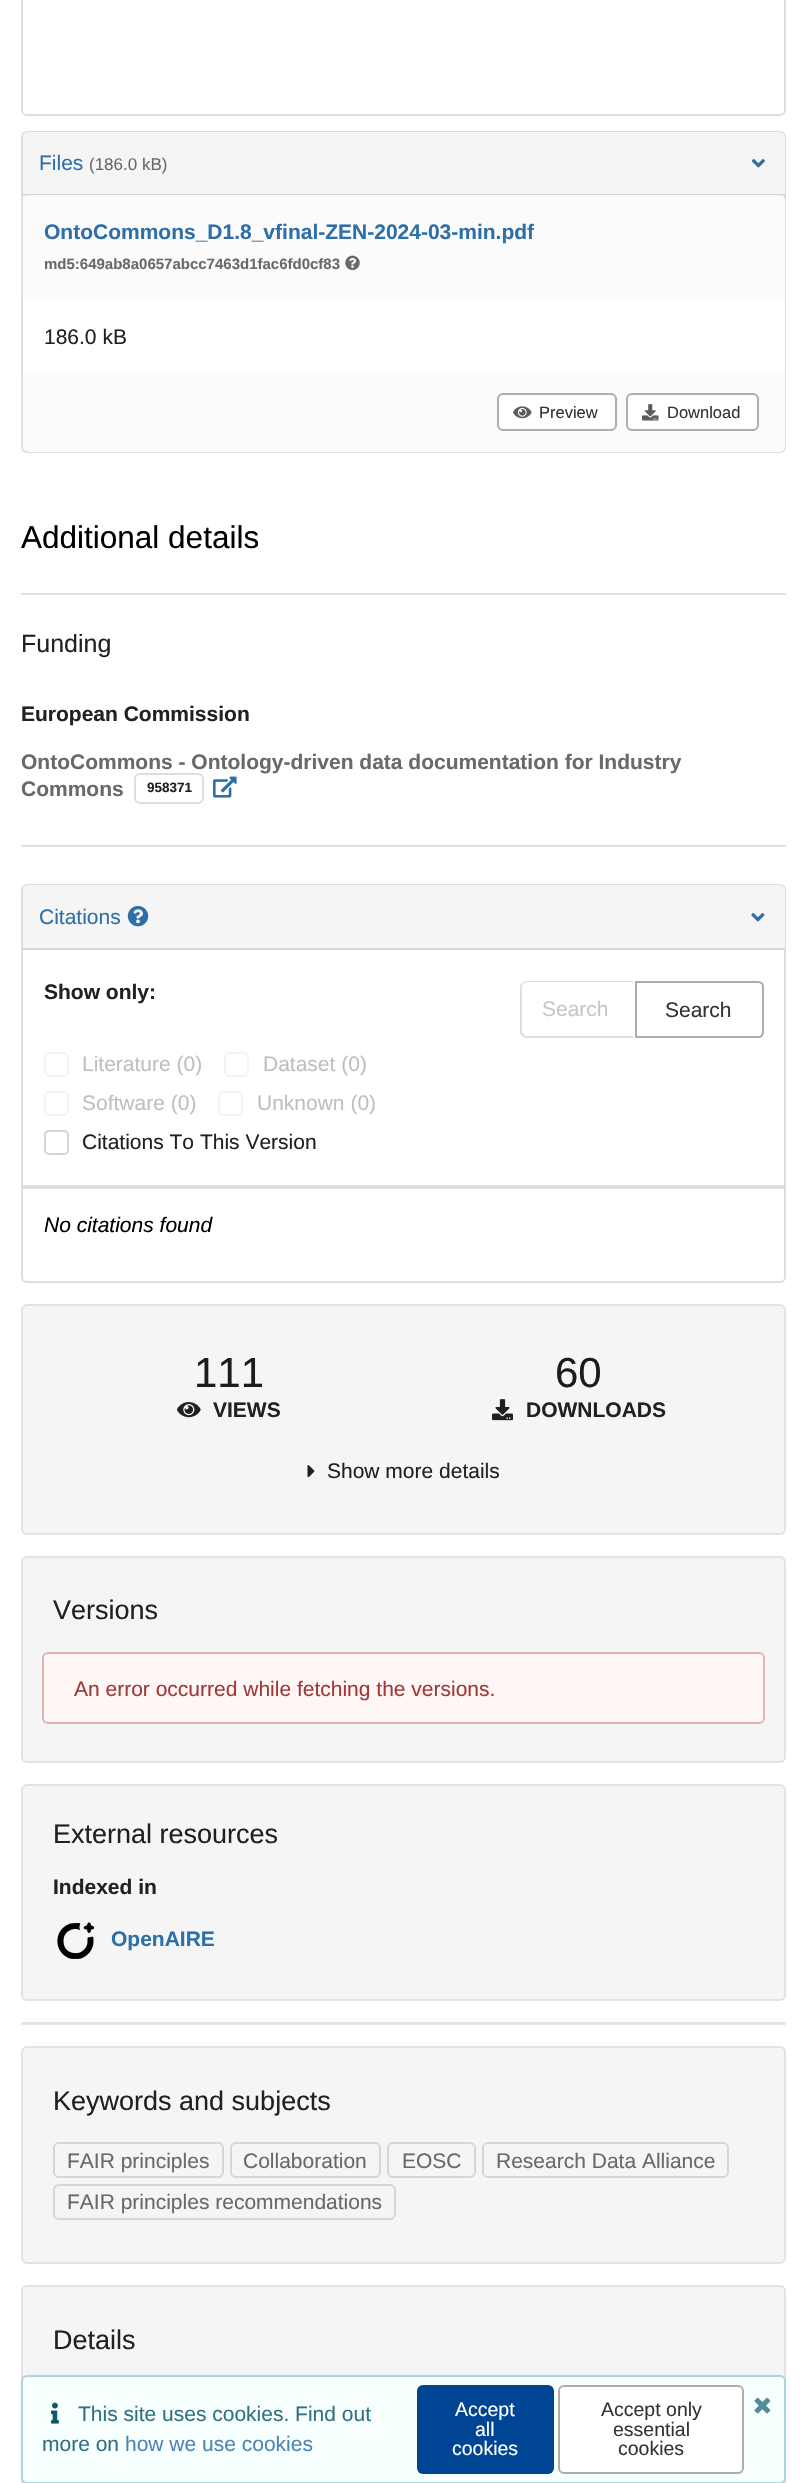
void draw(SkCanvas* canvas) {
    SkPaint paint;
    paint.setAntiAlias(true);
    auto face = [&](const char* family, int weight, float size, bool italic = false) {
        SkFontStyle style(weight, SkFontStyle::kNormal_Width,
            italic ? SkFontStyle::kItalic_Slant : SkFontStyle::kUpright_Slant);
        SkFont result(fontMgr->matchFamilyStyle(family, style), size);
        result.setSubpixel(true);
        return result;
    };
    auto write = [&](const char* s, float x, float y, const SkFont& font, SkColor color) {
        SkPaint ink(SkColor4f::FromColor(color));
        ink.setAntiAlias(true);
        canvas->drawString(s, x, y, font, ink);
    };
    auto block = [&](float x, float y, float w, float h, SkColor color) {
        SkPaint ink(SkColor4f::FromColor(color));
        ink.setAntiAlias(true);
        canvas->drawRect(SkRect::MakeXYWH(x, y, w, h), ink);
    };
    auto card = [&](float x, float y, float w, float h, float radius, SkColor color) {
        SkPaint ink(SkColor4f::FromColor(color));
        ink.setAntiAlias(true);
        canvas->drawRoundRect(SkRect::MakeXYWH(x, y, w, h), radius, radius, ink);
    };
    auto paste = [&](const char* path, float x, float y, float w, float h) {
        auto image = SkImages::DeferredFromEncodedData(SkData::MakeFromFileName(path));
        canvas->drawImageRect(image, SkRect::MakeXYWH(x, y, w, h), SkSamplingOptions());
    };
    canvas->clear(SK_ColorWHITE);
    paint.setStyle(SkPaint::kStroke_Style);
    paint.setStrokeWidth(2);
    paint.setColor(SkColorSetRGB(222, 222, 222));
    canvas->drawRoundRect(SkRect::MakeXYWH(22, -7, 763, 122), 5, 5, paint);
    canvas->drawRoundRect(SkRect::MakeXYWH(22, 132, 763, 320), 5, 5, paint);
    paint.setStyle(SkPaint::kFill_Style);
    paint.setColor(SkColorSetRGB(245, 245, 245));
    canvas->drawPath(SkPathBuilder().moveTo(29, 132).lineTo(779, 132).cubicTo(782.5f, 132, 785, 134.5f, 785, 138).lineTo(785, 195).lineTo(23, 195).lineTo(23, 138).cubicTo(23, 134.5f, 25.5f, 132, 29, 132).close().detach(), paint);
    block(23, 194, 762, 2, SkColorSetARGB(38, 34, 36, 38));
    auto kFont1 = face("Liberation Sans", 400, 21);
    write("Files", 39, 170, kFont1, SkColorSetRGB(47, 111, 167));
    auto kFont2 = face("Liberation Sans", 400, 17);
    write("(186.0 kB)", 89, 170, kFont2, SkColorSetRGB(105, 105, 105));
    paste("pic1.png", 751, 159, 14, 9);
    card(23, 195, 762, 257, 6, SK_ColorWHITE);
    block(23, 195, 762, 105, SkColorSetARGB(38, 226, 226, 228));
    auto kFont3 = face("Liberation Sans", 700, 21);
    write("OntoCommons_D1.8_vfinal-ZEN-2024-03-min.pdf", 44, 239, kFont3, SkColorSetRGB(47, 111, 167));
    auto kFont4 = face("Liberation Sans", 700, 15);
    write("md5:649ab8a0657abcc7463d1fac6fd0cf83", 44, 269, kFont4, SkColorSetRGB(105, 105, 105));
    paste("pic2.png", 345, 255, 15, 16);
    write("186.0 kB", 44, 344, kFont1, SkColorSetRGB(33, 33, 33));
    block(23, 372, 762, 80, SkColorSetARGB(38, 226, 226, 228));
    paint.setColor(SK_ColorWHITE);
    canvas->drawRoundRect(SkRect::MakeXYWH(498, 394, 118, 36), 5, 5, paint);
    paint.setStyle(SkPaint::kStroke_Style);
    paint.setColor(SkColorSetRGB(173, 173, 173));
    canvas->drawRoundRect(SkRect::MakeXYWH(498, 394, 118, 36), 5, 5, paint);
    paste("pic3.png", 513, 406, 19, 13);
    auto kFont5 = face("Liberation Sans", 400, 16.5f);
    write("Preview", 539, 418, kFont5, SkColorSetRGB(51, 51, 51));
    paint.setStyle(SkPaint::kFill_Style);
    paint.setColor(SK_ColorWHITE);
    canvas->drawRoundRect(SkRect::MakeXYWH(627, 394, 131, 36), 5, 5, paint);
    paint.setStyle(SkPaint::kStroke_Style);
    paint.setColor(SkColorSetRGB(173, 173, 173));
    canvas->drawRoundRect(SkRect::MakeXYWH(627, 394, 131, 36), 5, 5, paint);
    paste("pic4.png", 642, 404, 17, 17);
    write("Download", 667, 418, kFont5, SkColorSetRGB(51, 51, 51));
    auto kFont6 = face("Liberation Sans", 400, 31.5f);
    write("Additional details", 21, 548, kFont6, SK_ColorBLACK);
    block(21, 593, 765, 1, SkColorSetRGB(222, 222, 222));
    block(21, 594, 765, 1, SkColorSetRGB(225, 225, 225));
    auto kFont7 = face("Liberation Sans", 400, 25);
    write("Funding", 21, 652, kFont7, SkColorSetRGB(33, 33, 33));
    write("European Commission", 21, 721, kFont3, SkColorSetRGB(33, 33, 33));
    write("OntoCommons - Ontology-driven data documentation for Industry", 21, 769, kFont3, SkColorSetRGB(105, 105, 105));
    write("Commons", 21, 796, kFont3, SkColorSetRGB(105, 105, 105));
    paint.setColor(SkColorSetRGB(222, 222, 222));
    canvas->drawRoundRect(SkRect::MakeXYWH(135, 774, 68, 29), 5, 5, paint);
    auto kFont8 = face("Liberation Sans", 700, 13.5f);
    write("958371", 147, 792, kFont8, SkColorSetRGB(33, 33, 33));
    paste("pic5.png", 213, 776, 24, 22);
    block(21, 845, 765, 1, SkColorSetRGB(222, 222, 222));
    block(21, 846, 765, 1, SkColorSetRGB(225, 225, 225));
    canvas->drawRoundRect(SkRect::MakeXYWH(22, 885, 763, 397), 5, 5, paint);
    paint.setStyle(SkPaint::kFill_Style);
    paint.setColor(SkColorSetRGB(245, 245, 245));
    canvas->drawPath(SkPathBuilder().moveTo(29, 885).lineTo(779, 885).cubicTo(782.5f, 885, 785, 887.5f, 785, 891).lineTo(785, 950).lineTo(23, 950).lineTo(23, 891).cubicTo(23, 887.5f, 25.5f, 885, 29, 885).close().detach(), paint);
    block(23, 948, 762, 2, SkColorSetRGB(213, 214, 214));
    write("Citations", 39, 924, kFont1, SkColorSetRGB(47, 111, 167));
    paste("pic6.png", 127, 906, 22, 21);
    paste("pic7.png", 751, 913, 14, 9);
    write("Show only:", 44, 999, kFont3, SkColorSetRGB(33, 33, 33));
    paint.setStyle(SkPaint::kStroke_Style);
    paint.setColor(SkColorSetRGB(244, 244, 245));
    canvas->drawRoundRect(SkRect::MakeXYWH(45, 1053, 23, 23), 4, 4, paint);
    write("Literature (0)", 82, 1071, kFont1, SkColorSetRGB(191, 191, 191));
    canvas->drawRoundRect(SkRect::MakeXYWH(225, 1053, 23, 23), 4, 4, paint);
    write("Dataset (0)", 263, 1071, kFont1, SkColorSetRGB(191, 191, 191));
    canvas->drawRoundRect(SkRect::MakeXYWH(45, 1092, 23, 23), 4, 4, paint);
    write("Software (0)", 82, 1110, kFont1, SkColorSetRGB(191, 191, 191));
    canvas->drawRoundRect(SkRect::MakeXYWH(219, 1092, 23, 23), 4, 4, paint);
    write("Unknown (0)", 257, 1110, kFont1, SkColorSetRGB(191, 191, 191));
    paint.setColor(SkColorSetRGB(212, 212, 213));
    canvas->drawRoundRect(SkRect::MakeXYWH(45, 1131, 23, 23), 4, 4, paint);
    write("Citations To This Version", 82, 1149, kFont1, SkColorSetRGB(33, 33, 33));
    paint.setStyle(SkPaint::kFill_Style);
    paint.setColor(SkColorSetRGB(222, 222, 222));
    canvas->drawPath(SkPathBuilder().moveTo(526, 981).cubicTo(525, 981, 523, 982, 522, 983).lineTo(523, 984).lineTo(526, 982).lineTo(633, 982).lineTo(634, 981).close().detach(), paint);
    canvas->drawPath(SkPathBuilder().moveTo(526, 1038).lineTo(634, 1038).lineTo(632, 1036).lineTo(526, 1036).lineTo(524, 1035).lineTo(522, 1036).cubicTo(523, 1037, 525, 1038, 526, 1038).close().detach(), paint);
    paint.setColor(SkColorSetARGB(38, 34, 36, 38));
    canvas->drawPath(SkPathBuilder().moveTo(520, 985).lineTo(522, 983).lineTo(523, 984).cubicTo(521, 987, 522, 991, 522, 994).lineTo(522, 1032).lineTo(524, 1035).lineTo(522, 1036).lineTo(520, 1034).close().detach(), paint);
    write("Search", 542, 1016, kFont1, SkColorSetRGB(199, 199, 199));
    paint.setStyle(SkPaint::kStroke_Style);
    paint.setColor(SkColorSetRGB(173, 173, 173));
    canvas->drawPath(SkPathBuilder().moveTo(636, 982).lineTo(758, 982).cubicTo(761, 982, 763, 984, 763, 987).lineTo(763, 1032).cubicTo(763, 1035, 761, 1037, 758, 1037).lineTo(636, 1037).close().detach(), paint);
    write("Search", 665, 1017, kFont1, SkColorSetRGB(51, 51, 51));
    block(784, 1187, 1, 1, SK_ColorWHITE);
    block(23, 1185, 762, 2, SkColorSetRGB(222, 222, 222));
    block(23, 1187, 762, 2, SkColorSetARGB(38, 34, 36, 38));
    auto kFont9 = face("Liberation Sans", 400, 21, true);
    write("No citations found", 44, 1232, kFont9, SK_ColorBLACK);
    paint.setStyle(SkPaint::kFill_Style);
    paint.setColor(SkColorSetRGB(245, 245, 245));
    canvas->drawRoundRect(SkRect::MakeXYWH(22, 1305, 763, 229), 5, 5, paint);
    paint.setStyle(SkPaint::kStroke_Style);
    paint.setColor(SkColorSetRGB(227, 227, 227));
    canvas->drawRoundRect(SkRect::MakeXYWH(22, 1305, 763, 229), 5, 5, paint);
    auto kFont10 = face("Liberation Sans", 400, 42);
    write("111", 194, 1387, kFont10, SkColorSetRGB(27, 28, 29));
    paste("pic8.png", 177, 1402, 24, 16);
    write("VIEWS", 213, 1417, kFont3, SkColorSetRGB(33, 33, 33));
    write("60", 555, 1387, kFont10, SkColorSetRGB(27, 28, 29));
    paste("pic9.png", 492, 1399, 21, 22);
    write("DOWNLOADS", 526, 1417, kFont3, SkColorSetRGB(33, 33, 33));
    paste("pic10.png", 307, 1465, 8, 13);
    write("Show more details", 327, 1478, kFont1, SkColorSetRGB(33, 33, 33));
    paint.setStyle(SkPaint::kFill_Style);
    paint.setColor(SkColorSetRGB(245, 245, 245));
    canvas->drawRoundRect(SkRect::MakeXYWH(22, 1557, 763, 205), 5, 5, paint);
    paint.setStyle(SkPaint::kStroke_Style);
    paint.setColor(SkColorSetRGB(227, 227, 227));
    canvas->drawRoundRect(SkRect::MakeXYWH(22, 1557, 763, 205), 5, 5, paint);
    auto kFont11 = face("Liberation Sans", 400, 27);
    write("Versions", 53, 1619, kFont11, SkColorSetRGB(33, 33, 33));
    paint.setStyle(SkPaint::kFill_Style);
    paint.setColor(SkColorSetRGB(255, 246, 246));
    canvas->drawRoundRect(SkRect::MakeXYWH(43, 1653, 721, 70), 5, 5, paint);
    paint.setStyle(SkPaint::kStroke_Style);
    paint.setColor(SkColorSetRGB(224, 180, 180));
    canvas->drawRoundRect(SkRect::MakeXYWH(43, 1653, 721, 70), 5, 5, paint);
    write("An error occurred while fetching the versions.", 74, 1696, kFont1, SkColorSetRGB(159, 58, 56));
    paint.setStyle(SkPaint::kFill_Style);
    paint.setColor(SkColorSetRGB(245, 245, 245));
    canvas->drawRoundRect(SkRect::MakeXYWH(22, 1785, 763, 215), 5, 5, paint);
    paint.setStyle(SkPaint::kStroke_Style);
    paint.setColor(SkColorSetRGB(227, 227, 227));
    canvas->drawRoundRect(SkRect::MakeXYWH(22, 1785, 763, 215), 5, 5, paint);
    write("External resources", 53, 1843, kFont11, SkColorSetRGB(33, 33, 33));
    write("Indexed in", 53, 1894, kFont3, SkColorSetRGB(33, 33, 33));
    paste("pic11.png", 57, 1922, 37, 37);
    write("OpenAIRE", 111, 1946, kFont3, SkColorSetRGB(47, 111, 167));
    card(21, 2022, 765, 3, 1.5f, SkColorSetRGB(227, 227, 227));
    paint.setStyle(SkPaint::kFill_Style);
    paint.setColor(SkColorSetRGB(245, 245, 245));
    canvas->drawRoundRect(SkRect::MakeXYWH(22, 2047, 763, 216), 5, 5, paint);
    paint.setStyle(SkPaint::kStroke_Style);
    paint.setColor(SkColorSetRGB(227, 227, 227));
    canvas->drawRoundRect(SkRect::MakeXYWH(22, 2047, 763, 216), 5, 5, paint);
    write("Keywords and subjects", 53, 2110, kFont11, SkColorSetRGB(33, 33, 33));
    paint.setColor(SkColorSetRGB(213, 214, 214));
    canvas->drawRoundRect(SkRect::MakeXYWH(54, 2143, 169, 34), 5, 5, paint);
    write("FAIR principles", 67, 2168, kFont1, SkColorSetRGB(105, 105, 105));
    canvas->drawRoundRect(SkRect::MakeXYWH(231, 2143, 149, 34), 5, 5, paint);
    write("Collaboration", 243, 2168, kFont1, SkColorSetRGB(105, 105, 105));
    canvas->drawRoundRect(SkRect::MakeXYWH(388, 2143, 87, 34), 5, 5, paint);
    write("EOSC", 402, 2168, kFont1, SkColorSetRGB(105, 105, 105));
    canvas->drawRoundRect(SkRect::MakeXYWH(483, 2143, 245, 34), 5, 5, paint);
    write("Research Data Alliance", 496, 2168, kFont1, SkColorSetRGB(105, 105, 105));
    canvas->drawRoundRect(SkRect::MakeXYWH(54, 2185, 341, 34), 5, 5, paint);
    write("FAIR principles recommendations", 67, 2209, kFont1, SkColorSetRGB(105, 105, 105));
    paint.setStyle(SkPaint::kFill_Style);
    paint.setColor(SkColorSetRGB(245, 245, 245));
    canvas->drawRoundRect(SkRect::MakeXYWH(22, 2286, 763, 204), 5, 5, paint);
    paint.setStyle(SkPaint::kStroke_Style);
    paint.setColor(SkColorSetRGB(227, 227, 227));
    canvas->drawRoundRect(SkRect::MakeXYWH(22, 2286, 763, 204), 5, 5, paint);
    write("Details", 53, 2349, kFont11, SkColorSetRGB(33, 33, 33));
    paint.setStyle(SkPaint::kFill_Style);
    paint.setColor(SkColorSetRGB(248, 255, 255));
    canvas->drawRoundRect(SkRect::MakeXYWH(22, 2376, 763, 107), 5, 5, paint);
    paint.setStyle(SkPaint::kStroke_Style);
    paint.setColor(SkColorSetRGB(169, 213, 222));
    canvas->drawRoundRect(SkRect::MakeXYWH(22, 2376, 763, 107), 5, 5, paint);
    paste("pic12.png", 51, 2402, 8, 22);
    write("This site uses cookies. Find out", 78, 2421, kFont1, SkColorSetRGB(49, 112, 130));
    write("more on", 42, 2451, kFont1, SkColorSetRGB(49, 112, 130));
    write("how we use cookies", 125, 2451, kFont1, SkColorSetRGB(77, 133, 180));
    card(417, 2385, 137, 89, 6, SkColorSetRGB(0, 68, 148));
    auto kFont12 = face("Liberation Sans", 400, 19.5f);
    write("Accept", 455, 2416, kFont12, SK_ColorWHITE);
    write("all", 475, 2436, kFont12, SK_ColorWHITE);
    write("cookies", 452, 2455, kFont12, SK_ColorWHITE);
    paint.setStyle(SkPaint::kFill_Style);
    paint.setColor(SK_ColorWHITE);
    canvas->drawRoundRect(SkRect::MakeXYWH(559, 2386, 184, 87), 5, 5, paint);
    paint.setStyle(SkPaint::kStroke_Style);
    paint.setColor(SkColorSetRGB(173, 173, 173));
    canvas->drawRoundRect(SkRect::MakeXYWH(559, 2386, 184, 87), 5, 5, paint);
    write("Accept only", 601, 2416, kFont12, SkColorSetRGB(51, 51, 51));
    write("essential", 613, 2436, kFont12, SkColorSetRGB(51, 51, 51));
    write("cookies", 618, 2455, kFont12, SkColorSetRGB(51, 51, 51));
    paste("pic13.png", 754, 2397, 17, 17);
}
